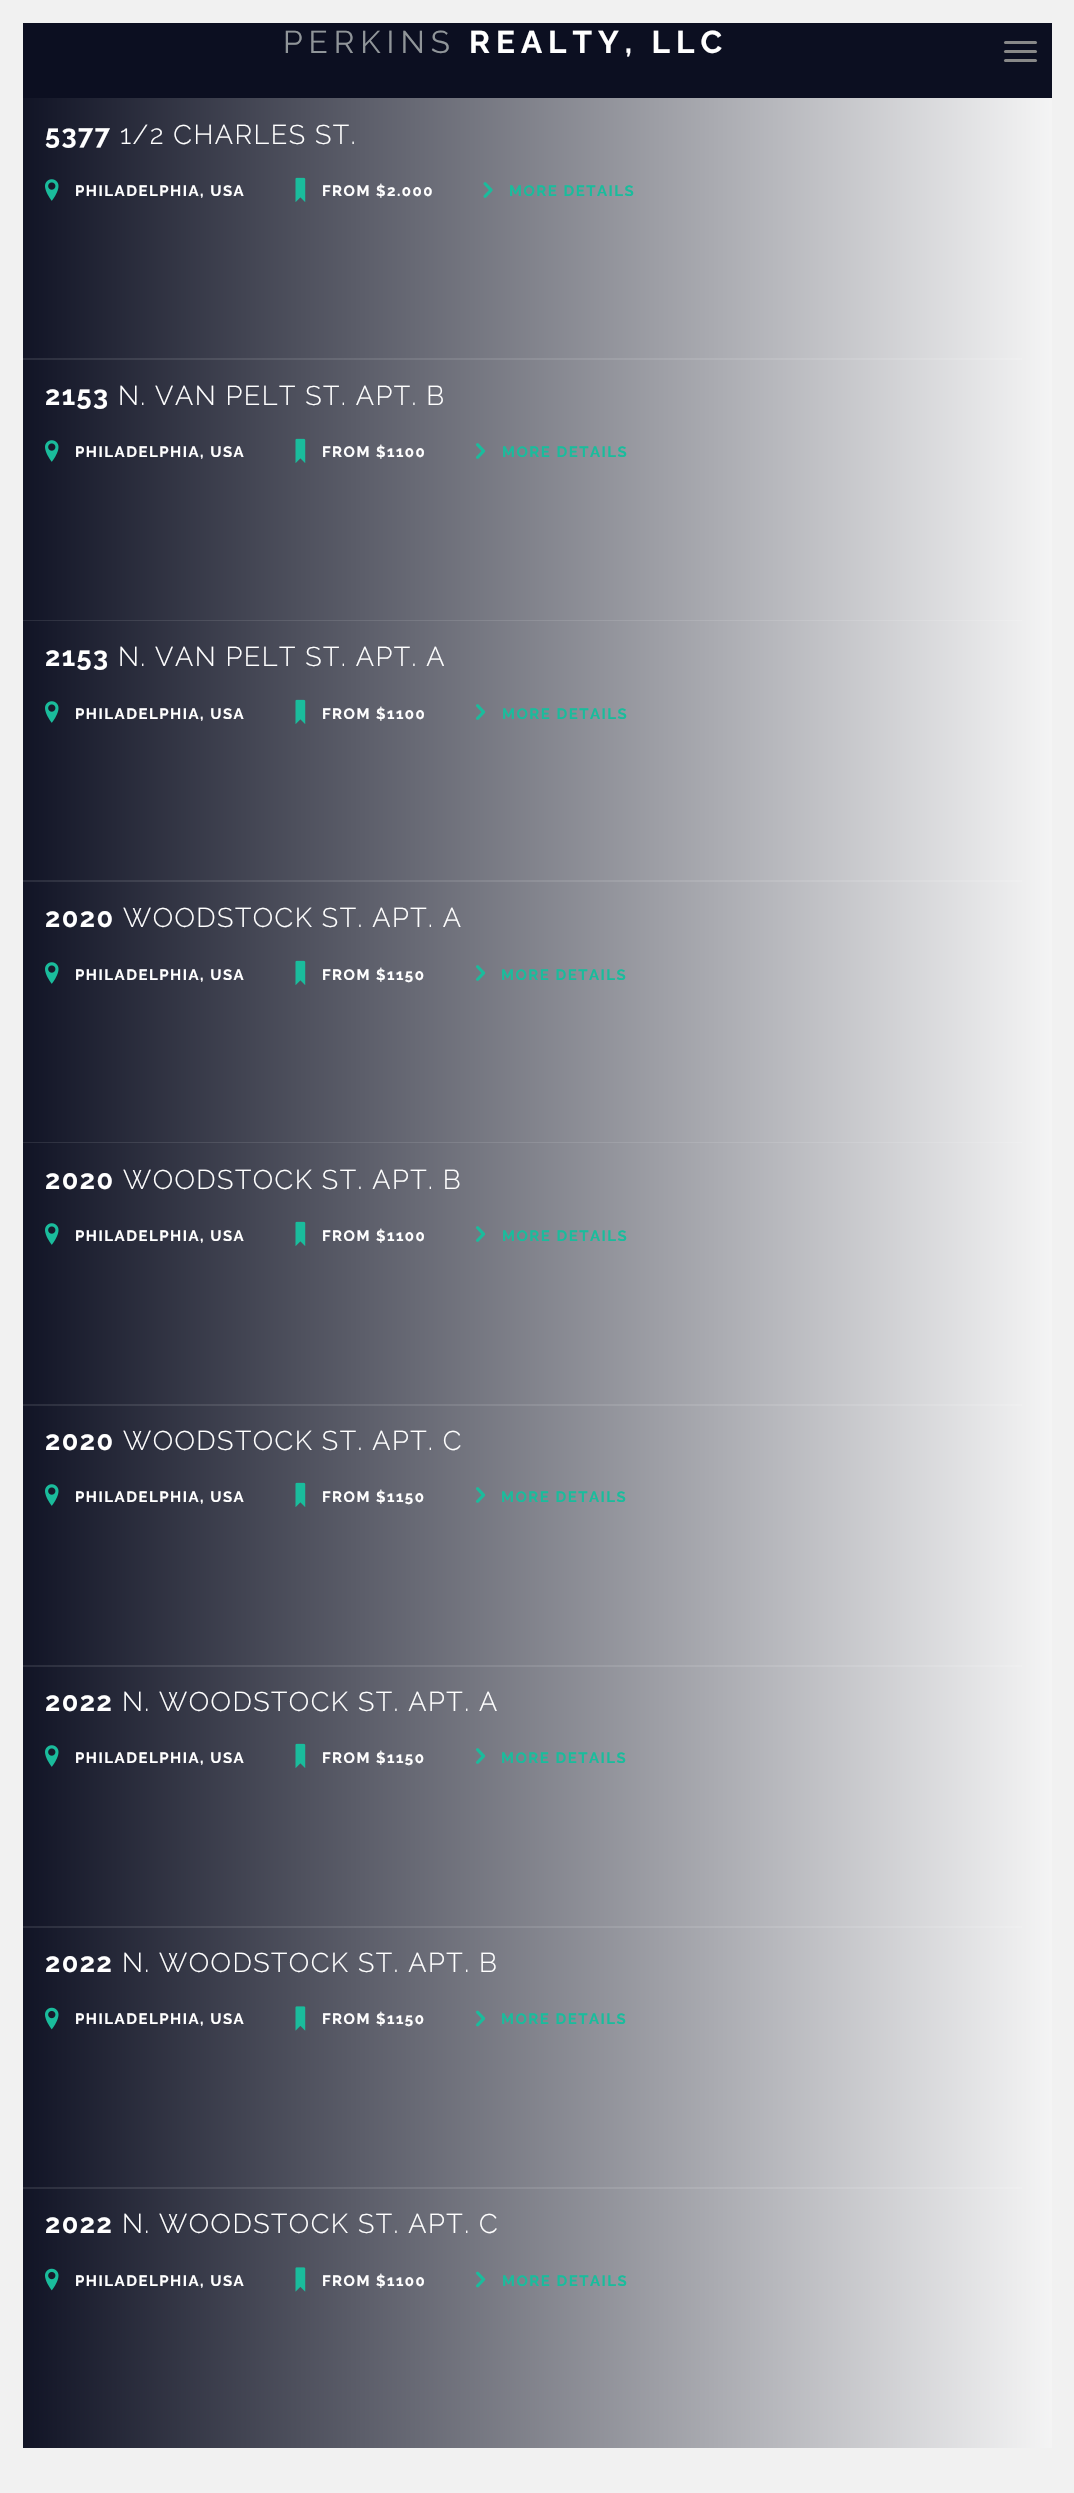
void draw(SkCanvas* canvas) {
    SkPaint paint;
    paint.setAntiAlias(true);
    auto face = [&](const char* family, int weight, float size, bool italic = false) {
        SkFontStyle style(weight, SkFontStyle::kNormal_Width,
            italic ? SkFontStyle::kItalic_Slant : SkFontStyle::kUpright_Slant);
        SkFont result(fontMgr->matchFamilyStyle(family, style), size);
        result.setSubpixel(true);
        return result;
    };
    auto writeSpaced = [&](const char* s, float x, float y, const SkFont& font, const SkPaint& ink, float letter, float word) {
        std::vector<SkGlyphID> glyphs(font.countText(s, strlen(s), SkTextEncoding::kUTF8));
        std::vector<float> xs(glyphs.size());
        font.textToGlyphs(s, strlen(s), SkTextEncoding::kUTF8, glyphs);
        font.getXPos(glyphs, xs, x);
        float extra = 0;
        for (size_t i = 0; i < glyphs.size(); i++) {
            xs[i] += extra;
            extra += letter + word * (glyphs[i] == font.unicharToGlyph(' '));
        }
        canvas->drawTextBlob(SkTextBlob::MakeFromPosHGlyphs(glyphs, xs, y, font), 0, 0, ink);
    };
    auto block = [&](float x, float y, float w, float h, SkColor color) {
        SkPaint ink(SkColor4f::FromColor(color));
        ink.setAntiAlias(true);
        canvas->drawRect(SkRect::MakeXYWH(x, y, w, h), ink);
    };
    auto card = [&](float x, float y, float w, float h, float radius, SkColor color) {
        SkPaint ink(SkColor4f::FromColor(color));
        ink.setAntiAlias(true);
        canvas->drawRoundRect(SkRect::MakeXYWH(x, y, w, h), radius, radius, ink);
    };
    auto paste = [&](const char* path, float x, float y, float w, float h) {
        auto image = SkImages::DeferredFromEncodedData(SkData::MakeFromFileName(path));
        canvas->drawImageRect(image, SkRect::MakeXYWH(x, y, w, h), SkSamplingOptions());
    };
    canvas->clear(SkColorSetRGB(241, 241, 241));
    block(23, 23, 1029, 75, SkColorSetRGB(12, 15, 33));
    auto kFont1 = face("Raleway", 400, 31.5f);
    paint.setColor(SkColorSetRGB(144, 149, 153));
    writeSpaced("PERKINS", 283, 53, kFont1, paint, 6, 0);
    auto kFont2 = face("Raleway", 700, 31.5f);
    paint.setColor(SK_ColorWHITE);
    writeSpaced("REALTY, LLC", 469, 53, kFont2, paint, 6, 0);
    card(1004, 41, 33, 3, 1.5f, SkColorSetRGB(136, 136, 136));
    card(1004, 50, 33, 3, 1.5f, SkColorSetRGB(136, 136, 136));
    card(1004, 59, 33, 3, 1.5f, SkColorSetRGB(136, 136, 136));
    {
        const SkColor colors[] = {SkColorSetRGB(12, 15, 33), SkColorSetRGB(249, 249, 249)};
        const float stops[] = {0, 1};
        const SkPoint ends[] = {{0, 1273}, {1074, 1273}};
        paint.setShader(SkGradientShader::MakeLinear(ends, colors, stops, 2, SkTileMode::kClamp));
        paint.setAlpha(255);
    }
    canvas->drawRect(SkRect::MakeXYWH(23, 98, 1029, 2350), paint);
    {
        const SkColor colors[] = {SkColorSetRGB(36, 39, 55), SkColorSetRGB(250, 250, 250)};
        const float stops[] = {0, 1};
        const SkPoint ends[] = {{0, 1273}, {1074, 1273}};
        paint.setShader(SkGradientShader::MakeLinear(ends, colors, stops, 2, SkTileMode::kClamp));
        paint.setAlpha(255);
    }
    canvas->drawRect(SkRect::MakeXYWH(23, 2187, 999, 2), paint);
    canvas->drawRect(SkRect::MakeXYWH(23, 1926, 999, 2), paint);
    canvas->drawRect(SkRect::MakeXYWH(23, 1665, 999, 2), paint);
    canvas->drawRect(SkRect::MakeXYWH(23, 1404, 999, 2), paint);
    canvas->drawRect(SkRect::MakeXYWH(23, 1142, 999, 1), paint);
    canvas->drawRect(SkRect::MakeXYWH(23, 880, 999, 2), paint);
    canvas->drawRect(SkRect::MakeXYWH(23, 620, 999, 1), paint);
    canvas->drawRect(SkRect::MakeXYWH(23, 358, 999, 2), paint);
    auto kFont3 = face("Raleway", 700, 27);
    paint.setShader(nullptr);
    paint.setColor(SK_ColorWHITE);
    writeSpaced("5377", 45, 144, kFont3, paint, 1.5f, 0);
    auto kFont4 = face("Raleway", 300, 27);
    writeSpaced("1/2 CHARLES ST.", 120, 144, kFont4, paint, 1.5f, 0);
    paste("pic1.png", 45, 179, 14, 22);
    auto kFont5 = face("Raleway", 700, 15);
    writeSpaced("PHILADELPHIA, USA", 75, 196, kFont5, paint, 1.5f, 0);
    paste("pic2.png", 295, 177, 11, 25);
    writeSpaced("FROM $2.000", 322, 196, kFont5, paint, 1.5f, 0);
    paste("pic3.png", 483, 182, 10, 16);
    paint.setColor(SkColorSetRGB(26, 188, 156));
    writeSpaced("MORE DETAILS", 509, 196, kFont5, paint, 1.5f, 0);
    paint.setColor(SK_ColorWHITE);
    writeSpaced("2153", 45, 405, kFont3, paint, 1.5f, 0);
    writeSpaced("N. VAN PELT ST. APT. B", 118, 405, kFont4, paint, 1.5f, 0);
    paste("pic1.png", 45, 440, 14, 22);
    writeSpaced("PHILADELPHIA, USA", 75, 457, kFont5, paint, 1.5f, 0);
    paste("pic2.png", 295, 438, 11, 25);
    writeSpaced("FROM $1100", 322, 457, kFont5, paint, 1.5f, 0);
    paste("pic4.png", 476, 443, 10, 16);
    paint.setColor(SkColorSetRGB(26, 188, 156));
    writeSpaced("MORE DETAILS", 502, 457, kFont5, paint, 1.5f, 0);
    paint.setColor(SK_ColorWHITE);
    writeSpaced("2153", 45, 666, kFont3, paint, 1.5f, 0);
    writeSpaced("N. VAN PELT ST. APT. A", 118, 666, kFont4, paint, 1.5f, 0);
    paste("pic1.png", 45, 701, 14, 22);
    writeSpaced("PHILADELPHIA, USA", 75, 719, kFont5, paint, 1.5f, 0);
    paste("pic2.png", 295, 699, 11, 25);
    writeSpaced("FROM $1100", 322, 719, kFont5, paint, 1.5f, 0);
    paste("pic4.png", 476, 704, 10, 16);
    paint.setColor(SkColorSetRGB(26, 188, 156));
    writeSpaced("MORE DETAILS", 502, 719, kFont5, paint, 1.5f, 0);
    paint.setColor(SK_ColorWHITE);
    writeSpaced("2020", 45, 927, kFont3, paint, 1.5f, 0);
    writeSpaced("WOODSTOCK ST. APT. A", 123, 927, kFont4, paint, 1.5f, 0);
    paste("pic1.png", 45, 962, 14, 22);
    writeSpaced("PHILADELPHIA, USA", 75, 980, kFont5, paint, 1.5f, 0);
    paste("pic2.png", 295, 960, 11, 25);
    writeSpaced("FROM $1150", 322, 980, kFont5, paint, 1.5f, 0);
    paste("pic4.png", 476, 965, 10, 16);
    paint.setColor(SkColorSetRGB(26, 188, 156));
    writeSpaced("MORE DETAILS", 501, 980, kFont5, paint, 1.5f, 0);
    paint.setColor(SK_ColorWHITE);
    writeSpaced("2020", 45, 1189, kFont3, paint, 1.5f, 0);
    writeSpaced("WOODSTOCK ST. APT. B", 123, 1189, kFont4, paint, 1.5f, 0);
    paste("pic1.png", 45, 1223, 14, 22);
    writeSpaced("PHILADELPHIA, USA", 75, 1241, kFont5, paint, 1.5f, 0);
    paste("pic2.png", 295, 1221, 11, 25);
    writeSpaced("FROM $1100", 322, 1241, kFont5, paint, 1.5f, 0);
    paste("pic4.png", 476, 1226, 10, 16);
    paint.setColor(SkColorSetRGB(26, 188, 156));
    writeSpaced("MORE DETAILS", 502, 1241, kFont5, paint, 1.5f, 0);
    paint.setColor(SK_ColorWHITE);
    writeSpaced("2020", 45, 1450, kFont3, paint, 1.5f, 0);
    writeSpaced("WOODSTOCK ST. APT. C", 123, 1450, kFont4, paint, 1.5f, 0);
    paste("pic1.png", 45, 1484, 14, 22);
    writeSpaced("PHILADELPHIA, USA", 75, 1502, kFont5, paint, 1.5f, 0);
    paste("pic2.png", 295, 1482, 11, 25);
    writeSpaced("FROM $1150", 322, 1502, kFont5, paint, 1.5f, 0);
    paste("pic4.png", 476, 1487, 10, 16);
    paint.setColor(SkColorSetRGB(26, 188, 156));
    writeSpaced("MORE DETAILS", 501, 1502, kFont5, paint, 1.5f, 0);
    paint.setColor(SK_ColorWHITE);
    writeSpaced("2022", 45, 1711, kFont3, paint, 1.5f, 0);
    writeSpaced("N. WOODSTOCK ST. APT. A", 122, 1711, kFont4, paint, 1.5f, 0);
    paste("pic1.png", 45, 1745, 14, 22);
    writeSpaced("PHILADELPHIA, USA", 75, 1763, kFont5, paint, 1.5f, 0);
    paste("pic2.png", 295, 1743, 11, 25);
    writeSpaced("FROM $1150", 322, 1763, kFont5, paint, 1.5f, 0);
    paste("pic4.png", 476, 1748, 10, 16);
    paint.setColor(SkColorSetRGB(26, 188, 156));
    writeSpaced("MORE DETAILS", 501, 1763, kFont5, paint, 1.5f, 0);
    paint.setColor(SK_ColorWHITE);
    writeSpaced("2022", 45, 1972, kFont3, paint, 1.5f, 0);
    writeSpaced("N. WOODSTOCK ST. APT. B", 122, 1972, kFont4, paint, 1.5f, 0);
    paste("pic5.png", 45, 2007, 14, 23);
    writeSpaced("PHILADELPHIA, USA", 75, 2024, kFont5, paint, 1.5f, 0);
    paste("pic6.png", 295, 2006, 11, 25);
    writeSpaced("FROM $1150", 322, 2024, kFont5, paint, 1.5f, 0);
    paste("pic7.png", 476, 2010, 10, 17);
    paint.setColor(SkColorSetRGB(26, 188, 156));
    writeSpaced("MORE DETAILS", 501, 2024, kFont5, paint, 1.5f, 0);
    paint.setColor(SK_ColorWHITE);
    writeSpaced("2022", 45, 2233, kFont3, paint, 1.5f, 0);
    writeSpaced("N. WOODSTOCK ST. APT. C", 122, 2233, kFont4, paint, 1.5f, 0);
    paste("pic5.png", 45, 2268, 14, 23);
    writeSpaced("PHILADELPHIA, USA", 75, 2286, kFont5, paint, 1.5f, 0);
    paste("pic6.png", 295, 2267, 11, 25);
    writeSpaced("FROM $1100", 322, 2286, kFont5, paint, 1.5f, 0);
    paste("pic7.png", 476, 2271, 10, 17);
    paint.setColor(SkColorSetRGB(26, 188, 156));
    writeSpaced("MORE DETAILS", 502, 2286, kFont5, paint, 1.5f, 0);
}
